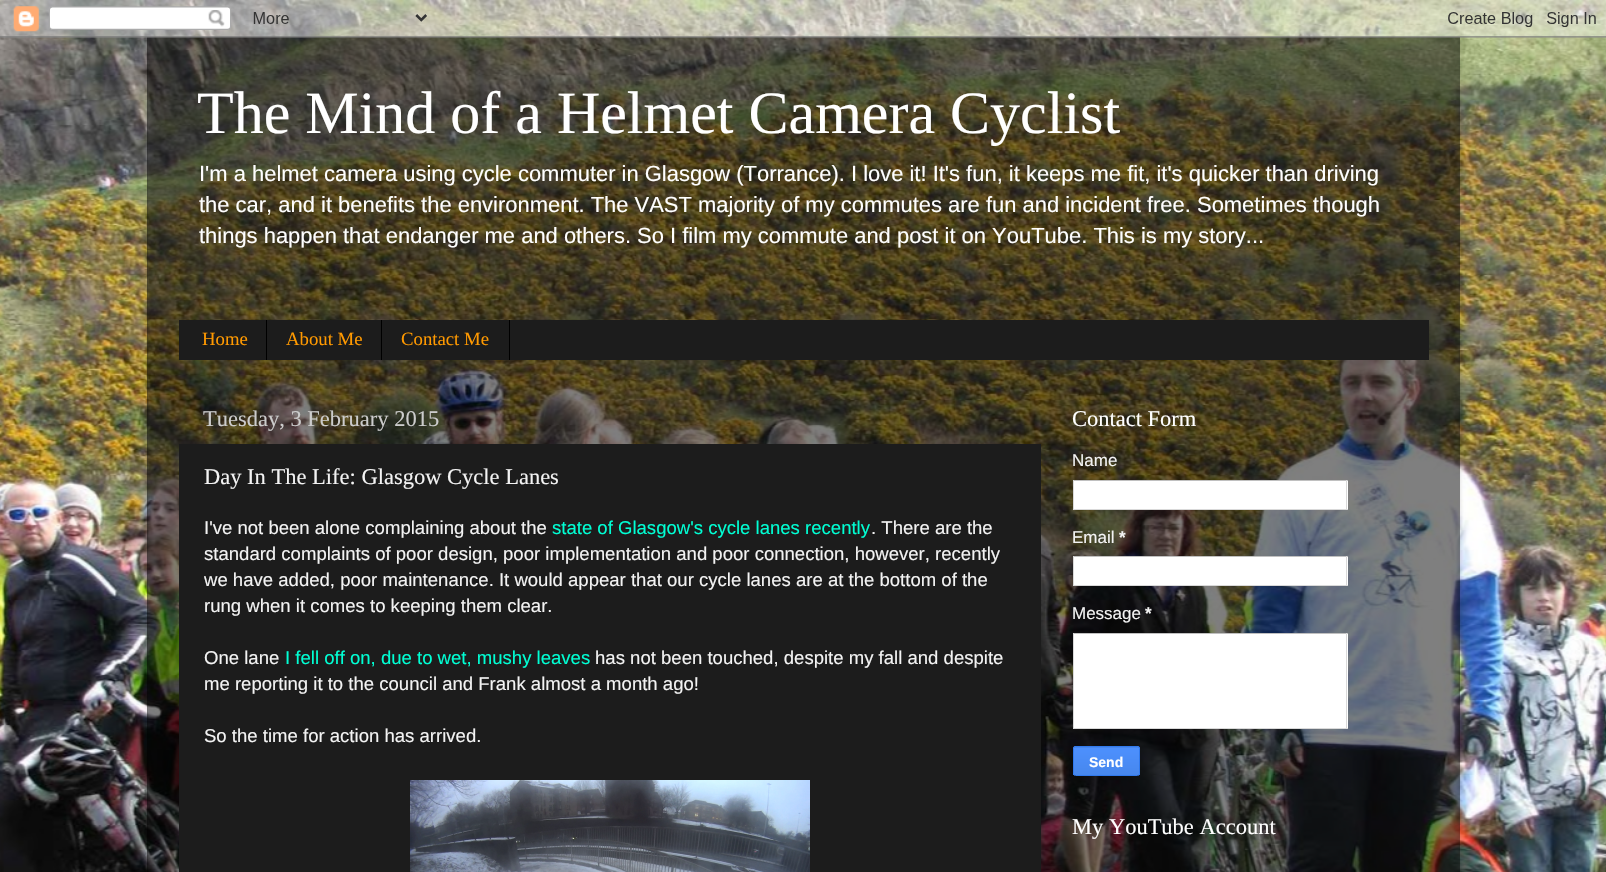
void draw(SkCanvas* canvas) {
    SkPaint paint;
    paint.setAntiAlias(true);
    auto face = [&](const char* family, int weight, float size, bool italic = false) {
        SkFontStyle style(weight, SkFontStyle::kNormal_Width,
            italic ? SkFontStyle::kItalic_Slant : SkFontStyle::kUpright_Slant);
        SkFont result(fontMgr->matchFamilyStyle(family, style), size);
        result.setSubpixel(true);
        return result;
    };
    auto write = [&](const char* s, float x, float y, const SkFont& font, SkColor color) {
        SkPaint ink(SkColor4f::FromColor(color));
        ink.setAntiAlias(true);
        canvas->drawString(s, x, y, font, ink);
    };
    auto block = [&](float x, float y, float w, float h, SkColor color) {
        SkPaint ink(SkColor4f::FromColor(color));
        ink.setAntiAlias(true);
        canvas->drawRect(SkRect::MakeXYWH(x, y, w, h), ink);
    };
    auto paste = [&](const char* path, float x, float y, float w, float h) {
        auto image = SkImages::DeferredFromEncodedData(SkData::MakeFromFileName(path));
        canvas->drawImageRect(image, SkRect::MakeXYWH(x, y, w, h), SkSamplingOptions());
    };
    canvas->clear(SK_ColorWHITE);
    paste("pic1.png", 0, 0, 1606, 872);
    canvas->save();
    canvas->clipPath(SkPathBuilder(SkPathFillType::kEvenOdd).moveTo(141, 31).lineTo(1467, 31).lineTo(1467, 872).lineTo(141, 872).close().moveTo(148, 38).lineTo(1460, 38).lineTo(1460, 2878).lineTo(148, 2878).close().detach(), true);
    paint.setColor(SkColorSetARGB(38, 0, 0, 0));
    paint.setMaskFilter(SkMaskFilter::MakeBlur(kNormal_SkBlurStyle, 2));
    canvas->drawRect(SkRect::MakeXYWH(148, 38, 1312, 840), paint);
    paint.setMaskFilter(nullptr);
    canvas->restore();
    block(147, 37, 1313, 835, SkColorSetARGB(128, 0, 0, 0));
    paste("pic2.png", 0, 0, 1606, 38);
    auto kFont1 = face("Liberation Serif", 400, 60);
    write("The Mind of a Helmet Camera Cyclist", 197, 133, kFont1, SK_ColorWHITE);
    auto kFont2 = face("Liberation Sans", 400, 21.95f);
    write("I'm a helmet camera using cycle commuter in Glasgow (Torrance). I love it! It's fun, it keeps me fit, it's quicker than driving", 199, 181, kFont2, SK_ColorWHITE);
    write("the car, and it benefits the environment. The VAST majority of my commutes are fun and incident free. Sometimes though", 199, 212, kFont2, SK_ColorWHITE);
    write("things happen that endanger me and others. So I film my commute and post it on YouTube. This is my story...", 199, 243, kFont2, SK_ColorWHITE);
    block(179, 320, 1250, 40, SkColorSetRGB(28, 28, 28));
    block(266, 320, 1, 40, SK_ColorBLACK);
    auto kFont3 = face("Liberation Serif", 400, 18.75f);
    write("Home", 202, 345, kFont3, SkColorSetRGB(255, 153, 0));
    block(381, 320, 1, 40, SK_ColorBLACK);
    write("About Me", 286, 345, kFont3, SkColorSetRGB(255, 153, 0));
    block(509, 320, 1, 40, SK_ColorBLACK);
    write("Contact Me", 401, 345, kFont3, SkColorSetRGB(255, 153, 0));
    auto kFont4 = face("Liberation Serif", 400, 22.5f);
    write("Tuesday, 3 February 2015", 203, 426, kFont4, SkColorSetRGB(204, 204, 204));
    block(179, 444, 862, 428, SkColorSetRGB(28, 28, 28));
    write("Day In The Life: Glasgow Cycle Lanes", 204, 484, kFont4, SkColorSetRGB(243, 243, 243));
    auto kFont5 = face("Liberation Sans", 400, 18.55f);
    write("I've not been alone complaining about the", 204, 534, kFont5, SkColorSetRGB(243, 243, 243));
    write("state of Glasgow's cycle lanes recently", 552, 534, kFont5, SkColorSetRGB(0, 255, 212));
    write(". There are the", 871, 534, kFont5, SkColorSetRGB(243, 243, 243));
    write("standard complaints of poor design, poor implementation and poor connection, however, recently", 204, 560, kFont5, SkColorSetRGB(243, 243, 243));
    write("we have added, poor maintenance. It would appear that our cycle lanes are at the bottom of the", 204, 586, kFont5, SkColorSetRGB(243, 243, 243));
    write("rung when it comes to keeping them clear.", 204, 612, kFont5, SkColorSetRGB(243, 243, 243));
    write("One lane", 204, 664, kFont5, SkColorSetRGB(243, 243, 243));
    write("I fell off on, due to wet, mushy leaves", 285, 664, kFont5, SkColorSetRGB(0, 255, 212));
    write("has not been touched, despite my fall and despite", 595, 664, kFont5, SkColorSetRGB(243, 243, 243));
    write("me reporting it to the council and Frank almost a month ago!", 204, 690, kFont5, SkColorSetRGB(243, 243, 243));
    write("So the time for action has arrived.", 204, 742, kFont5, SkColorSetRGB(243, 243, 243));
    paste("pic3.png", 410, 780, 400, 92);
    write("Contact Form", 1072, 426, kFont4, SK_ColorWHITE);
    auto kFont6 = face("Liberation Sans", 400, 17);
    write("Name", 1072, 466, kFont6, SkColorSetRGB(243, 243, 243));
    block(1074, 481, 274, 28, SK_ColorWHITE);
    block(1073, 480, 275, 1, SkColorSetRGB(192, 192, 192));
    block(1346, 480, 1, 30, SkColorSetRGB(217, 217, 217));
    block(1073, 509, 275, 1, SkColorSetRGB(217, 217, 217));
    block(1073, 480, 1, 30, SkColorSetRGB(217, 217, 217));
    write("Email", 1072, 543, kFont6, SkColorSetRGB(243, 243, 243));
    auto kFont7 = face("Liberation Sans", 700, 17);
    write("*", 1119, 543, kFont7, SkColorSetRGB(243, 243, 243));
    block(1074, 557, 274, 28, SK_ColorWHITE);
    block(1073, 556, 275, 1, SkColorSetRGB(192, 192, 192));
    block(1346, 556, 1, 30, SkColorSetRGB(217, 217, 217));
    block(1073, 585, 275, 1, SkColorSetRGB(217, 217, 217));
    block(1073, 556, 1, 30, SkColorSetRGB(217, 217, 217));
    write("Message", 1072, 619, kFont6, SkColorSetRGB(243, 243, 243));
    write("*", 1145, 619, kFont7, SkColorSetRGB(243, 243, 243));
    block(1074, 634, 274, 94, SK_ColorWHITE);
    block(1073, 633, 275, 1, SkColorSetRGB(192, 192, 192));
    block(1346, 633, 1, 96, SkColorSetRGB(217, 217, 217));
    block(1073, 728, 275, 1, SkColorSetRGB(217, 217, 217));
    block(1073, 633, 1, 96, SkColorSetRGB(217, 217, 217));
    canvas->save();
    canvas->clipPath(SkPathBuilder().moveTo(1075.5f, 746).lineTo(1137.5f, 746).cubicTo(1139, 746, 1140, 747, 1140, 748.5f).lineTo(1140, 773.5f).cubicTo(1140, 775, 1139, 776, 1137.5f, 776).lineTo(1075.5f, 776).cubicTo(1074, 776, 1073, 775, 1073, 773.5f).lineTo(1073, 748.5f).cubicTo(1073, 747, 1074, 746, 1075.5f, 746).close().detach(), true);
    {
        const SkColor colors[] = {SkColorSetRGB(77, 144, 254), SkColorSetRGB(71, 135, 237)};
        const float stops[] = {0, 1};
        const SkPoint ends[] = {{1106, 720}, {1106, 748}};
        paint.setShader(SkGradientShader::MakeLinear(ends, colors, stops, 2, SkTileMode::kClamp));
        paint.setAlpha(255);
    }
    canvas->drawRect(SkRect::MakeXYWH(1073, 746, 67, 2), paint);
    canvas->restore();
    {
        const SkColor colors[] = {SkColorSetRGB(77, 144, 254), SkColorSetRGB(71, 135, 237)};
        const float stops[] = {0, 1};
        const SkPoint ends[] = {{1106, 748}, {1106, 775}};
        paint.setShader(SkGradientShader::MakeLinear(ends, colors, stops, 2, SkTileMode::kClamp));
        paint.setAlpha(255);
    }
    canvas->drawRect(SkRect::MakeXYWH(1073, 748, 67, 27), paint);
    paint.setStyle(SkPaint::kStroke_Style);
    paint.setStrokeWidth(1);
    paint.setShader(nullptr);
    paint.setColor(SkColorSetRGB(48, 121, 237));
    canvas->drawRoundRect(SkRect::MakeXYWH(1073.5f, 746.5f, 66, 29), 2, 2, paint);
    auto kFont8 = face("Liberation Sans", 700, 14);
    write("Send", 1089, 767, kFont8, SK_ColorWHITE);
    write("My YouTube Account", 1072, 834, kFont4, SK_ColorWHITE);
}
